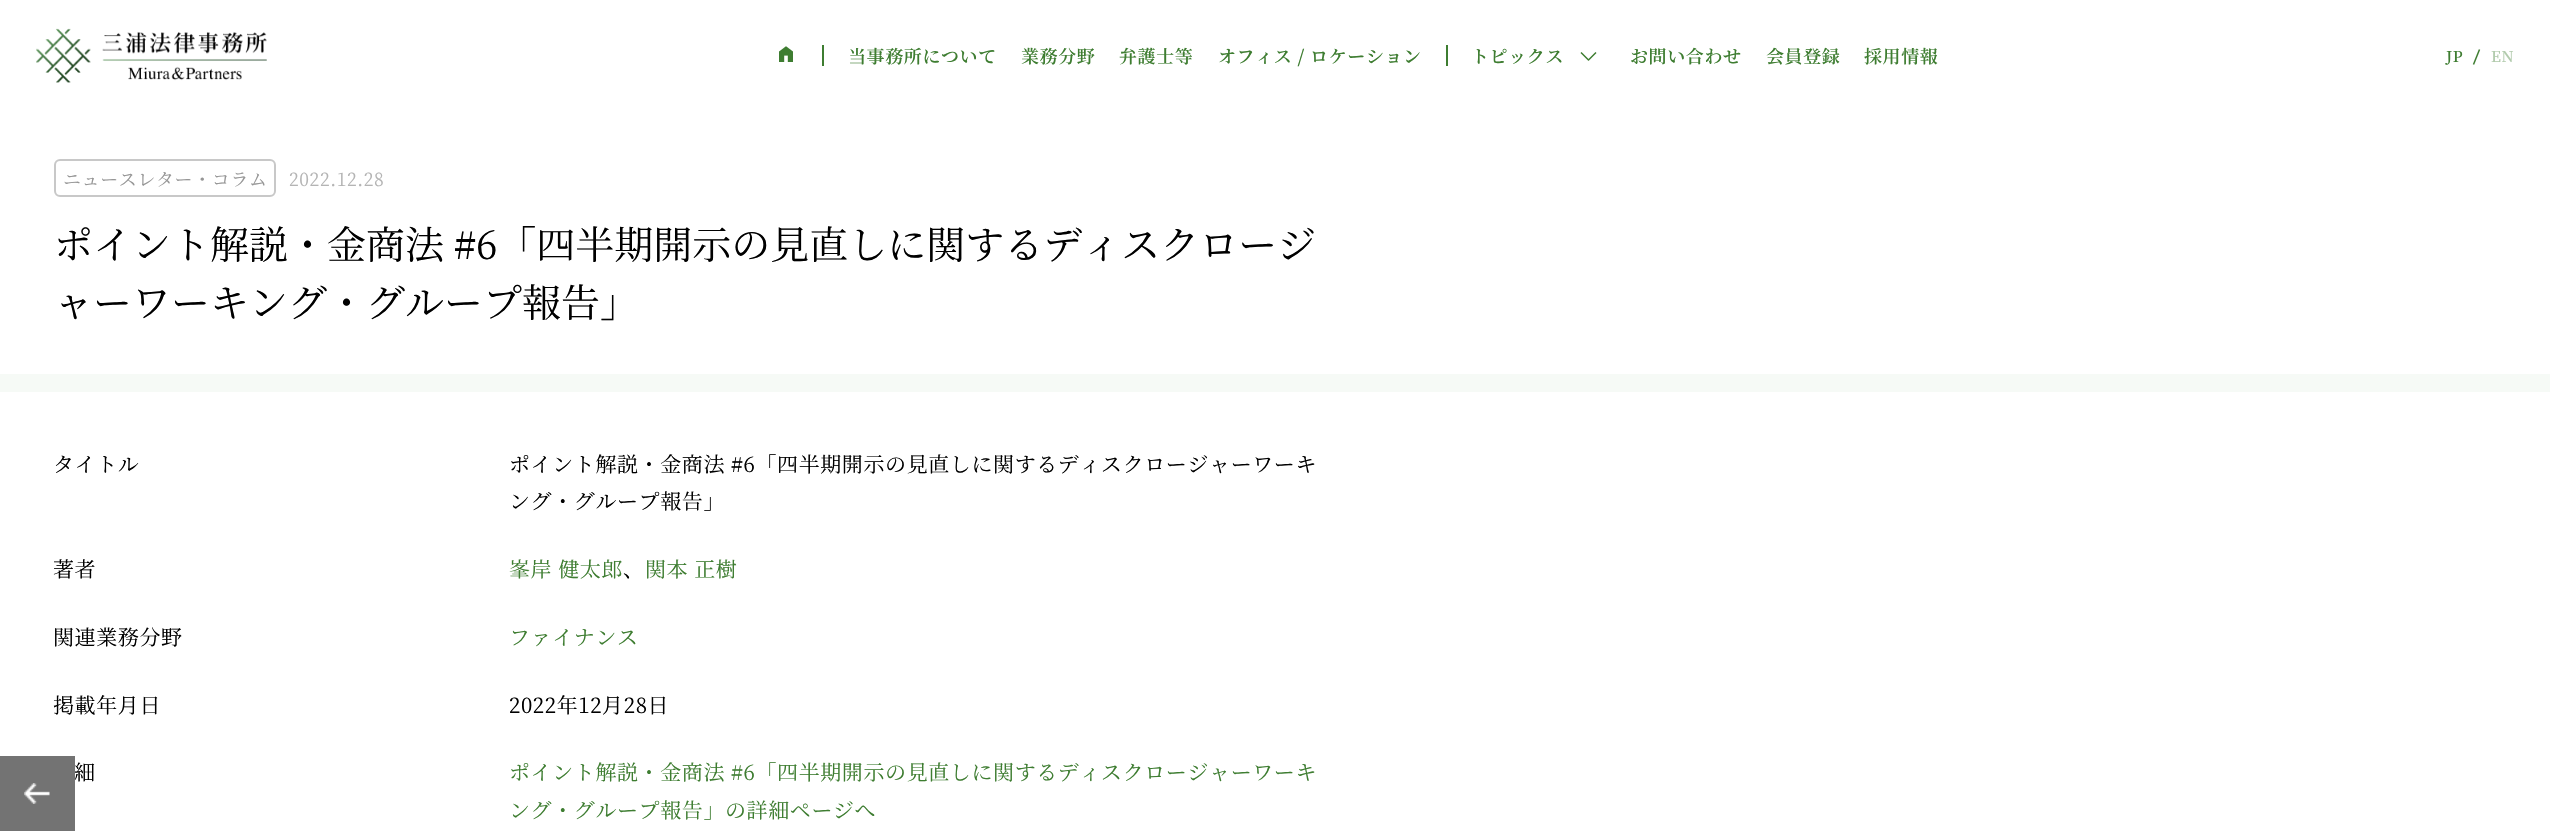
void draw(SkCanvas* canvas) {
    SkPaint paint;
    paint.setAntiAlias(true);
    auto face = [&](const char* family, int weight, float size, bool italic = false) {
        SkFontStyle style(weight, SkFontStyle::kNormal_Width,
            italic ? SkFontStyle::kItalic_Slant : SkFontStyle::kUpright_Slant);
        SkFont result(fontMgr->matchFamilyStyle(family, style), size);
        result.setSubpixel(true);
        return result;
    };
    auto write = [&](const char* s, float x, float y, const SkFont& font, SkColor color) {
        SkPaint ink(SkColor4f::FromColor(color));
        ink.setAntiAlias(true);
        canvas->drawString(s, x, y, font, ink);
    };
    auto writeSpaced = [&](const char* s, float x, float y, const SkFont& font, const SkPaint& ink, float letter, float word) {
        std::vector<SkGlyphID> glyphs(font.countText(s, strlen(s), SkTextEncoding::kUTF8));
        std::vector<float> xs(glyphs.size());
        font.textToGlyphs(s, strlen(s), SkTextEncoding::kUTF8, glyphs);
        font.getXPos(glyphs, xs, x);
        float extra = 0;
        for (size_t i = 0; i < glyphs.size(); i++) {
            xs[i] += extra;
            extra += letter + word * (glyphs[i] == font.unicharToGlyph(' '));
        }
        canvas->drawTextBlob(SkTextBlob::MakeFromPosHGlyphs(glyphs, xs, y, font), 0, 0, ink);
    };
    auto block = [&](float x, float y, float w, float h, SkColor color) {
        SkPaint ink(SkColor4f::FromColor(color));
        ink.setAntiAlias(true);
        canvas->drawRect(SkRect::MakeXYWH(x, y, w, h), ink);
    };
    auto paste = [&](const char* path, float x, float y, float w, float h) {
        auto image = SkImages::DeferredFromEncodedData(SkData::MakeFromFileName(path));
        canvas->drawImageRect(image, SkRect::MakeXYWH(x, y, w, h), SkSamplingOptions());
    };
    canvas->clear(SkColorSetRGB(246, 250, 246));
    block(0, 0, 2550, 374, SK_ColorWHITE);
    paste("pic1.png", 36, 28, 231, 55);
    paste("pic2.png", 779, 46, 14, 16);
    block(822, 45, 2, 21, SkColorSetRGB(62, 125, 49));
    auto kFont1 = face("Noto Serif CJK JP", 600, 18);
    paint.setColor(SkColorSetRGB(62, 125, 49));
    writeSpaced("当事務所について", 848, 63, kFont1, paint, 0.6f, 0);
    writeSpaced("業務分野", 1021, 63, kFont1, paint, 0.6f, 0);
    writeSpaced("弁護士等", 1119, 63, kFont1, paint, 0.6f, 0);
    writeSpaced("オフィス / ロケーション", 1218, 63, kFont1, paint, 0.6f, 0);
    block(1446, 45, 2, 21, SkColorSetRGB(62, 125, 49));
    writeSpaced("トピックス", 1471, 63, kFont1, paint, 0.6f, 0);
    paint.setStyle(SkPaint::kStroke_Style);
    paint.setStrokeWidth(1.5f);
    paint.setStrokeJoin(SkPaint::kRound_Join);
    canvas->drawPath(SkPathBuilder().moveTo(1596, 52.5f).lineTo(1588.5f, 60).lineTo(1581, 52.5f).detach(), paint);
    paint.setStyle(SkPaint::kFill_Style);
    writeSpaced("お問い合わせ", 1630, 63, kFont1, paint, 0.6f, 0);
    writeSpaced("会員登録", 1766, 63, kFont1, paint, 0.6f, 0);
    writeSpaced("採用情報", 1864, 63, kFont1, paint, 0.6f, 0);
    auto kFont2 = face("Noto Serif CJK JP", 600, 15);
    writeSpaced("JP", 2446, 62, kFont2, paint, 0.6f, 0);
    paint.setStyle(SkPaint::kStroke_Style);
    paint.setStrokeJoin(SkPaint::kMiter_Join);
    canvas->drawPath(SkPathBuilder().moveTo(2479.5f, 49.5f).lineTo(2473.5f, 64.5f).detach(), paint);
    paint.setStyle(SkPaint::kFill_Style);
    paint.setColor(SkColorSetRGB(178, 203, 173));
    writeSpaced("EN", 2491, 62, kFont2, paint, 0.6f, 0);
    block(0, 392, 2550, 439, SK_ColorWHITE);
    auto kFont3 = face("Noto Serif CJK JP", 400, 21);
    paint.setColor(SK_ColorBLACK);
    writeSpaced("細", 74, 780, kFont3, paint, 0.6f, 0);
    block(0, 756, 75, 75, SkColorSetARGB(230, 100, 100, 100));
    paste("pic3.png", 24, 783, 26, 21);
    paint.setStyle(SkPaint::kStroke_Style);
    paint.setStrokeWidth(2);
    paint.setColor(SkColorSetRGB(200, 200, 200));
    canvas->drawRoundRect(SkRect::MakeXYWH(55, 160, 220, 36), 5, 5, paint);
    auto kFont4 = face("Noto Serif CJK JP", 400, 18);
    paint.setStyle(SkPaint::kFill_Style);
    paint.setColor(SkColorSetRGB(150, 150, 150));
    writeSpaced("ニュースレター・コラム", 63, 186, kFont4, paint, 0.6f, 0);
    paint.setColor(SkColorSetRGB(180, 180, 180));
    writeSpaced("2022.12.28", 289, 186, kFont4, paint, 0.6f, 0);
    auto kFont5 = face("Noto Serif CJK JP", 400, 39);
    write("ポイント解説・金商法 #6「四半期開示の見直しに関するディスクロージ", 54, 259, kFont5, SK_ColorBLACK);
    write("ャーワーキング・グループ報告」", 54, 317, kFont5, SK_ColorBLACK);
    paint.setColor(SK_ColorBLACK);
    writeSpaced("タイトル", 53, 472, kFont3, paint, 0.6f, 0);
    writeSpaced("ポイント解説・金商法 #6「四半期開示の見直しに関するディスクロージャーワーキ", 509, 472, kFont3, paint, 0.6f, 0);
    writeSpaced("ング・グループ報告」", 509, 509, kFont3, paint, 0.6f, 0);
    writeSpaced("著者", 53, 577, kFont3, paint, 0.6f, 0);
    paint.setColor(SkColorSetRGB(62, 125, 49));
    writeSpaced("峯岸 健太郎", 509, 577, kFont3, paint, 0.6f, 0);
    paint.setColor(SK_ColorBLACK);
    writeSpaced("、", 623, 577, kFont3, paint, 0.6f, 0);
    paint.setColor(SkColorSetRGB(62, 125, 49));
    writeSpaced("関本 正樹", 645, 577, kFont3, paint, 0.6f, 0);
    paint.setColor(SK_ColorBLACK);
    writeSpaced("関連業務分野", 53, 645, kFont3, paint, 0.6f, 0);
    paint.setColor(SkColorSetRGB(62, 125, 49));
    writeSpaced("ファイナンス", 509, 645, kFont3, paint, 0.6f, 0);
    paint.setColor(SK_ColorBLACK);
    writeSpaced("掲載年月日", 53, 713, kFont3, paint, 0.6f, 0);
    writeSpaced("2022年12月28日", 509, 713, kFont3, paint, 0.6f, 0);
    paint.setColor(SkColorSetRGB(62, 125, 49));
    writeSpaced("ポイント解説・金商法 #6「四半期開示の見直しに関するディスクロージャーワーキ", 509, 780, kFont3, paint, 0.6f, 0);
    writeSpaced("ング・グループ報告」の詳細ページへ", 509, 818, kFont3, paint, 0.6f, 0);
}
